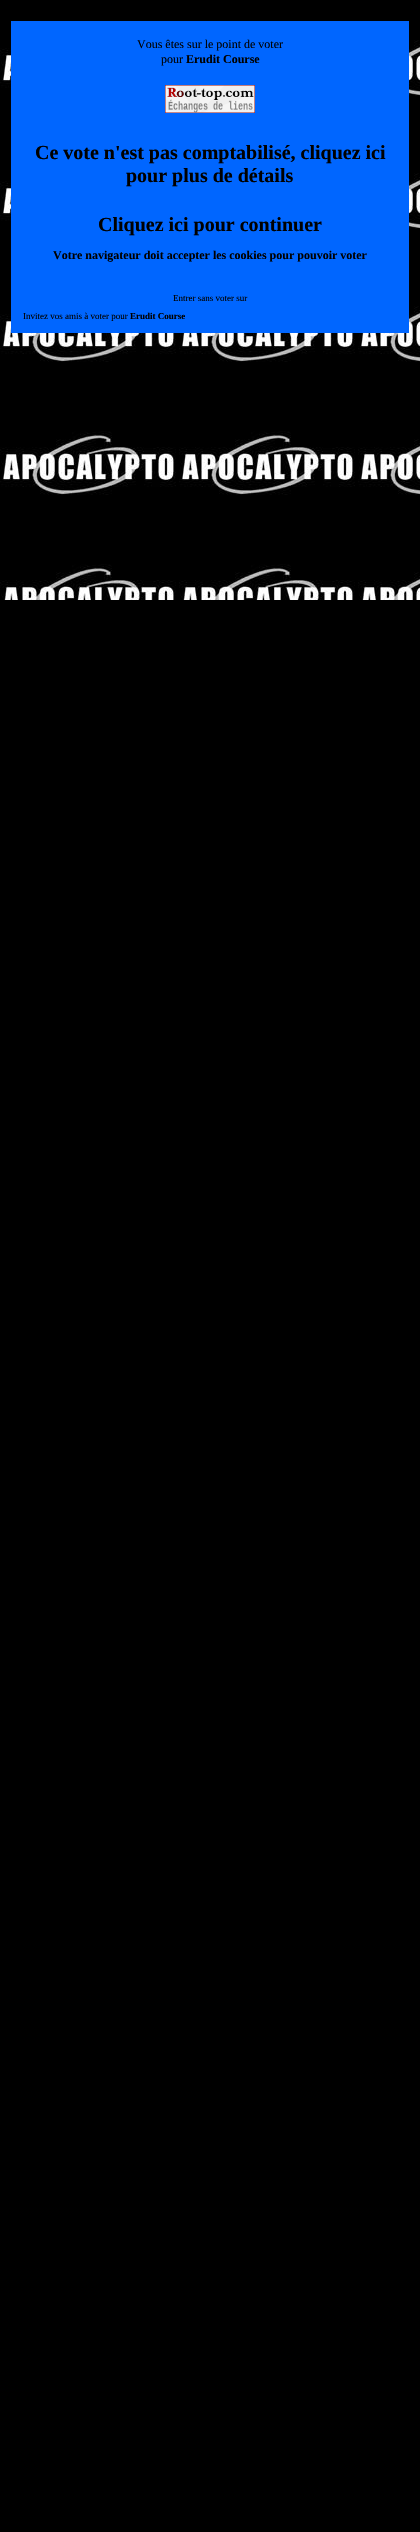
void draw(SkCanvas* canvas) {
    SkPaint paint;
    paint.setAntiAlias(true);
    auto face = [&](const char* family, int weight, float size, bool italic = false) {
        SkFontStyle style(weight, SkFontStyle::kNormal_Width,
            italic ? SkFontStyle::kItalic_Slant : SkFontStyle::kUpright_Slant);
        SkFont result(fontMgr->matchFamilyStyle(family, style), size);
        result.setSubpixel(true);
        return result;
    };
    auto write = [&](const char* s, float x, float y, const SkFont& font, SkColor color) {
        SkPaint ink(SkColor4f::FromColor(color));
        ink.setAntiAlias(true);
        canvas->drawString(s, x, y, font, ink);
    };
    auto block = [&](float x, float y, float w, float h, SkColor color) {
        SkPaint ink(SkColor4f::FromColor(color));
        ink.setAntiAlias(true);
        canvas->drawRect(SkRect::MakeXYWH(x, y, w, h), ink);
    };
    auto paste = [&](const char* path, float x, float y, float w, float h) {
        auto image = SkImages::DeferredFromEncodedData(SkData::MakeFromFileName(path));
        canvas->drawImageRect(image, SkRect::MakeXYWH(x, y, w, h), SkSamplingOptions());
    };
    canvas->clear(SK_ColorBLACK);
    paste("pic1.png", 0, 33, 420, 567);
    block(11, 21, 398, 312, SkColorSetRGB(0, 102, 255));
    auto kFont1 = face("Liberation Serif", 400, 12);
    write("Vous êtes sur le point de voter", 137, 48, kFont1, SK_ColorBLACK);
    write("pour", 161, 63, kFont1, SK_ColorBLACK);
    auto kFont2 = face("Liberation Serif", 700, 12);
    write("Erudit Course", 186, 63, kFont2, SK_ColorBLACK);
    paste("pic2.png", 165, 85, 90, 28);
    auto kFont3 = face("Liberation Serif", 700, 20);
    write("Ce vote n'est pas comptabilisé, cliquez ici", 35, 159, kFont3, SK_ColorBLACK);
    write("pour plus de détails", 126, 182, kFont3, SK_ColorBLACK);
    write("Cliquez ici pour continuer", 98, 231, kFont3, SK_ColorBLACK);
    write("Votre navigateur doit accepter les cookies pour pouvoir voter", 53, 259, kFont2, SK_ColorBLACK);
    auto kFont4 = face("Liberation Serif", 400, 9);
    write("Entrer sans voter sur", 173, 301, kFont4, SK_ColorBLACK);
    write("Invitez vos amis à voter pour", 23, 319, kFont4, SK_ColorBLACK);
    auto kFont5 = face("Liberation Serif", 700, 9);
    write("Erudit Course", 130, 319, kFont5, SK_ColorBLACK);
}
